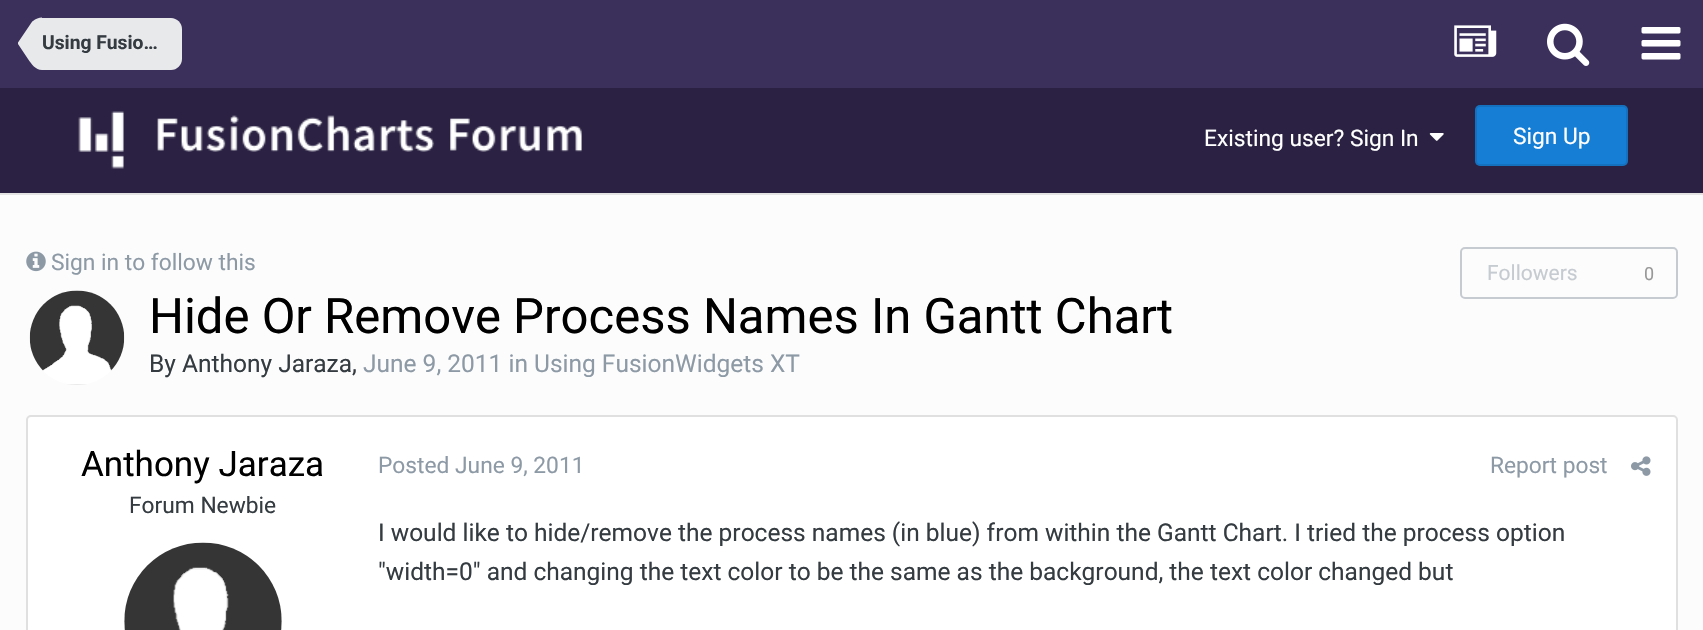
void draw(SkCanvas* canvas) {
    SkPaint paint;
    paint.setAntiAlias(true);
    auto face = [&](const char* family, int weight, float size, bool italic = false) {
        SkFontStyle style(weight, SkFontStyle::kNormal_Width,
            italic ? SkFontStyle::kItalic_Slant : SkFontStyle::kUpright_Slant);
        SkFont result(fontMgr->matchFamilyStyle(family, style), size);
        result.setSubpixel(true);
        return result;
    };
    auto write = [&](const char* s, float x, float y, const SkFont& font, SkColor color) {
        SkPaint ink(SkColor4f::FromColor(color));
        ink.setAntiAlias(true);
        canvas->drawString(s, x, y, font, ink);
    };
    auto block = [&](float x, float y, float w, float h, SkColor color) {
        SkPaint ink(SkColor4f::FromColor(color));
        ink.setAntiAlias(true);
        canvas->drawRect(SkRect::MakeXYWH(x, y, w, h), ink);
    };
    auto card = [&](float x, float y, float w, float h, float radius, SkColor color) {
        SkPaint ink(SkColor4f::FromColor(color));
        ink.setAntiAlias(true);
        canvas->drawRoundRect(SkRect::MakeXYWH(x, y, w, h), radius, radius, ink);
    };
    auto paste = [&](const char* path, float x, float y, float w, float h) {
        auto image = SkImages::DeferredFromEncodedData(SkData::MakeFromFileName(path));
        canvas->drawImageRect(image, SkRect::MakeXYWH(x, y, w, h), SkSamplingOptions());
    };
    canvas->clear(SkColorSetRGB(252, 252, 252));
    block(0, 193, 1703, 2, SkColorSetRGB(227, 227, 227));
    block(0, 0, 1703, 88, SkColorSetRGB(59, 47, 92));
    paint.setColor(SkColorSetRGB(232, 233, 235));
    canvas->drawPath(SkPathBuilder().moveTo(42, 18).lineTo(171, 18).cubicTo(177, 18, 182, 23, 182, 29).lineTo(182, 59).cubicTo(182, 65, 177, 70, 171, 70).lineTo(42, 70).close().detach(), paint);
    canvas->drawPath(SkPathBuilder().moveTo(18, 44).lineTo(42, 44).lineTo(42, 70).cubicTo(35.5f, 70, 31.5f, 64, 28, 59).close().moveTo(42, 17.5f).lineTo(42, 44).lineTo(18, 44).lineTo(18, 42.5f).lineTo(30.5f, 24).cubicTo(32, 22, 31.5f, 22, 33, 21).cubicTo(35.5f, 19, 39, 17.5f, 42, 17.5f).close().detach(), paint);
    auto kFont1 = face("Roboto", 700, 19.25f);
    write("Using Fusio…", 42, 49, kFont1, SkColorSetRGB(53, 60, 65));
    paste("pic1.png", 1454, 25, 43, 32);
    paste("pic2.png", 1547, 23, 43, 43);
    paste("pic3.png", 1641, 27, 40, 33);
    block(0, 88, 1703, 105, SkColorSetRGB(43, 34, 67));
    paste("pic4.png", 78, 111, 504, 58);
    auto kFont2 = face("Roboto", 400, 22.75f);
    write("Existing user? Sign In", 1204, 146, kFont2, SK_ColorWHITE);
    paste("pic5.png", 1429, 133, 15, 8);
    card(1475, 105, 153, 61, 5, SkColorSetRGB(22, 126, 213));
    paint.setStyle(SkPaint::kStroke_Style);
    paint.setStrokeWidth(2);
    paint.setColor(SkColorSetARGB(26, 0, 0, 0));
    canvas->drawRoundRect(SkRect::MakeXYWH(1476, 106, 151, 59), 4, 4, paint);
    write("Sign Up", 1513, 144, kFont2, SK_ColorWHITE);
    paste("pic6.png", 26, 251, 20, 21);
    write("Sign in to follow this", 51, 270, kFont2, SkColorSetRGB(141, 154, 166));
    paint.setColor(SkColorSetRGB(197, 203, 209));
    canvas->drawRoundRect(SkRect::MakeXYWH(1461, 248, 216, 50), 4, 4, paint);
    auto kFont3 = face("Roboto", 400, 21);
    write("Followers", 1487, 280, kFont3, SkColorSetRGB(197, 203, 209));
    auto kFont4 = face("Roboto", 400, 18);
    write("0", 1644, 280, kFont4, SkColorSetRGB(152, 152, 152));
    paste("pic7.png", 29, 290, 96, 95);
    auto kFont5 = face("Roboto", 400, 49);
    write("Hide Or Remove Process Names In Gantt Chart", 149, 333, kFont5, SK_ColorBLACK);
    auto kFont6 = face("Roboto", 400, 24.5f);
    write("By Anthony Jaraza,", 149, 372, kFont6, SkColorSetRGB(53, 60, 65));
    write("June 9, 2011 in Using FusionWidgets XT", 363, 372, kFont6, SkColorSetRGB(141, 154, 166));
    paint.setStyle(SkPaint::kFill_Style);
    paint.setColor(SK_ColorWHITE);
    canvas->drawRoundRect(SkRect::MakeXYWH(27, 416, 1650, 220), 4, 4, paint);
    paint.setStyle(SkPaint::kStroke_Style);
    paint.setColor(SkColorSetRGB(224, 224, 224));
    canvas->drawRoundRect(SkRect::MakeXYWH(27, 416, 1650, 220), 4, 4, paint);
    auto kFont7 = face("Roboto", 400, 35);
    write("Anthony Jaraza", 81, 476, kFont7, SK_ColorBLACK);
    write("Forum Newbie", 129, 513, kFont2, SkColorSetRGB(53, 60, 65));
    paste("pic8.png", 124, 542, 158, 88);
    write("Posted June 9, 2011", 378, 473, kFont2, SkColorSetRGB(141, 154, 166));
    write("Report post", 1490, 473, kFont2, SkColorSetRGB(141, 154, 166));
    paste("pic9.png", 1631, 456, 20, 20);
    write("I would like to hide/remove the process names (in blue) from within the Gantt Chart. I tried the process option", 378, 541, kFont6, SkColorSetRGB(53, 60, 65));
    write("\"width=0\" and changing the text color to be the same as the background, the text color changed but", 378, 580, kFont6, SkColorSetRGB(53, 60, 65));
}
